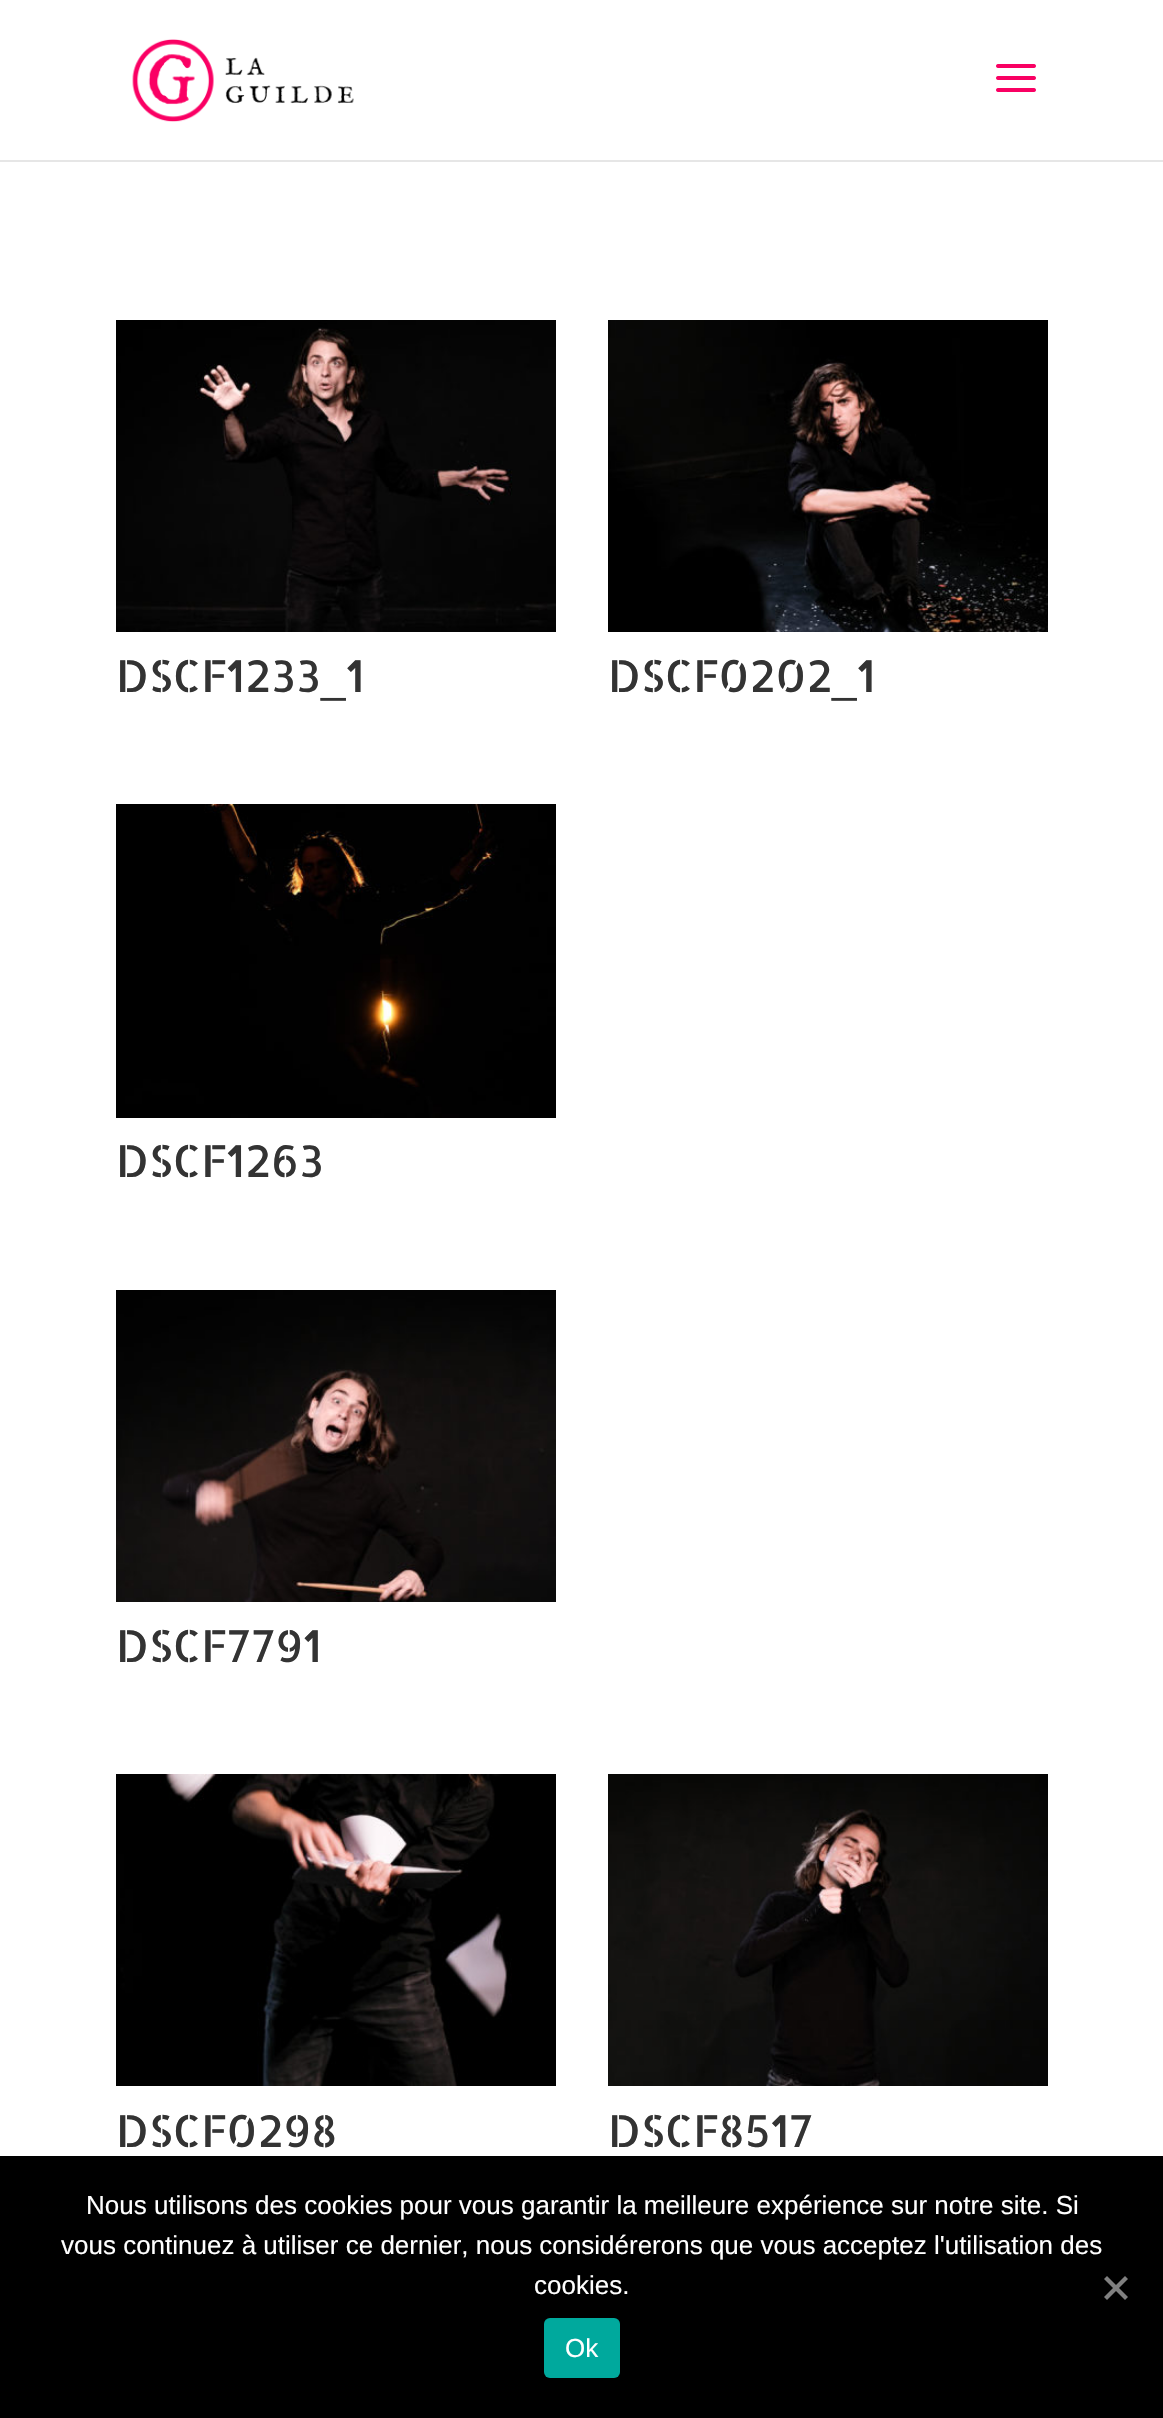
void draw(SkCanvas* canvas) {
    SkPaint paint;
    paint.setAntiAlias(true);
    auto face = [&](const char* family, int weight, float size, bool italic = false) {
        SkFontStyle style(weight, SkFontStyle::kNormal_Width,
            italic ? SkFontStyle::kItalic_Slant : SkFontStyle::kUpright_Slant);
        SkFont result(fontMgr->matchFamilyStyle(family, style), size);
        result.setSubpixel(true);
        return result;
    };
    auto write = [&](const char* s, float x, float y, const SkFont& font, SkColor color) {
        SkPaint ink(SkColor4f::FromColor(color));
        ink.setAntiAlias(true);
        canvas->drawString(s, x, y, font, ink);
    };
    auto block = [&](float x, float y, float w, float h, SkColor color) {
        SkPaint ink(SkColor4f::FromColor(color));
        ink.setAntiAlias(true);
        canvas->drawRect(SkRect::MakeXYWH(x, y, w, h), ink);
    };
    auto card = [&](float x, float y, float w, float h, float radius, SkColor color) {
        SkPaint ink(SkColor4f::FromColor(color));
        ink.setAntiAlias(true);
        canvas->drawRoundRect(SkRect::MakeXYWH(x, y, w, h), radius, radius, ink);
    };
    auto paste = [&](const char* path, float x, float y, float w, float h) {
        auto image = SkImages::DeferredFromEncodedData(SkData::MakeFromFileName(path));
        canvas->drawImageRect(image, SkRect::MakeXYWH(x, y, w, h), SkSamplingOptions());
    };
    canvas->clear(SK_ColorWHITE);
    block(0, 160, 1163, 2, SkColorSetRGB(230, 230, 230));
    paste("pic1.png", 132, 39, 222, 83);
    paste("pic2.png", 996, 64, 40, 28);
    paste("pic3.png", 116, 320, 440, 312);
    auto kFont1 = face("Allerta Stencil", 400, 44);
    write("DSCF1233", 116, 692, kFont1, SkColorSetRGB(51, 51, 51));
    write("1", 346, 692, kFont1, SkColorSetRGB(51, 51, 51));
    auto kFont2 = face("Liberation Sans", 400, 44);
    write("_", 321, 692, kFont2, SkColorSetRGB(51, 51, 51));
    paste("pic4.png", 608, 320, 440, 312);
    write("DSCF0202", 608, 692, kFont1, SkColorSetRGB(51, 51, 51));
    write("1", 857, 692, kFont1, SkColorSetRGB(51, 51, 51));
    write("_", 832, 692, kFont2, SkColorSetRGB(51, 51, 51));
    paste("pic5.png", 116, 804, 440, 314);
    write("DSCF1263", 116, 1177, kFont1, SkColorSetRGB(51, 51, 51));
    paste("pic6.png", 116, 1290, 440, 312);
    write("DSCF7791", 116, 1662, kFont1, SkColorSetRGB(51, 51, 51));
    paste("pic7.png", 116, 1774, 440, 312);
    write("DSCF0298", 116, 2147, kFont1, SkColorSetRGB(51, 51, 51));
    paste("pic8.png", 608, 1774, 440, 312);
    write("DSCF8517", 608, 2147, kFont1, SkColorSetRGB(51, 51, 51));
    block(0, 2156, 1163, 262, SK_ColorBLACK);
    auto kFont3 = face("Liberation Sans", 400, 26);
    write("Nous utilisons des cookies pour vous garantir la meilleure expérience sur notre site. Si", 86, 2214, kFont3, SK_ColorWHITE);
    write("vous continuez à utiliser ce dernier, nous considérerons que vous acceptez l'utilisation des", 61, 2254, kFont3, SK_ColorWHITE);
    write("cookies.", 534, 2294, kFont3, SK_ColorWHITE);
    paint.setColor(SkColorSetRGB(128, 128, 128));
    canvas->drawPath(SkPathBuilder().moveTo(1125, 2276).lineTo(1128, 2279).lineTo(1107, 2300).lineTo(1104, 2297).close().detach(), paint);
    canvas->drawPath(SkPathBuilder().moveTo(1104, 2279).lineTo(1107, 2276).lineTo(1128, 2297).lineTo(1125, 2300).close().detach(), paint);
    card(544, 2318, 76, 60, 6, SkColorSetRGB(0, 169, 157));
    write("Ok", 565, 2357, kFont3, SK_ColorWHITE);
}
